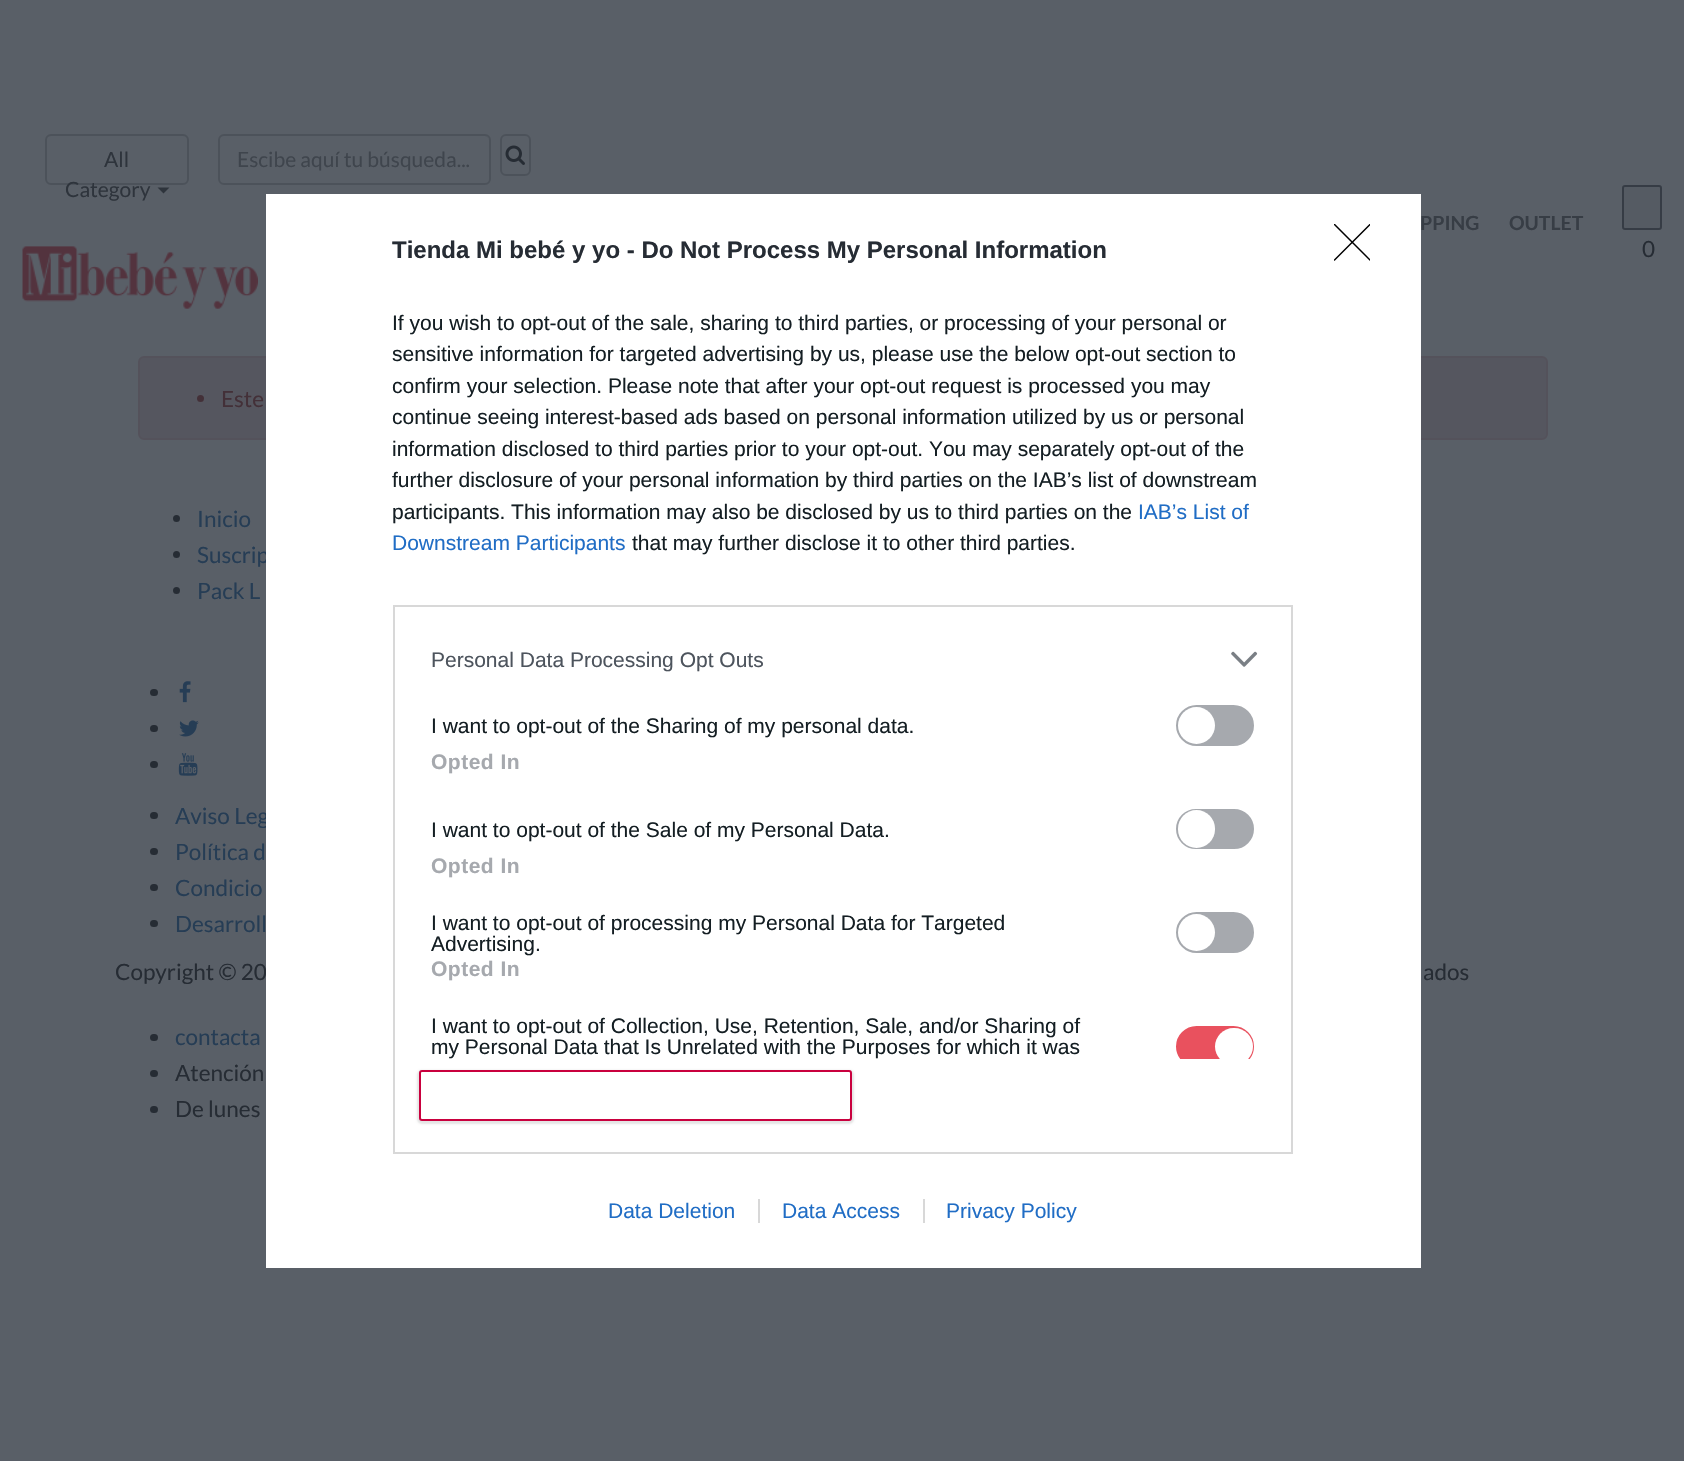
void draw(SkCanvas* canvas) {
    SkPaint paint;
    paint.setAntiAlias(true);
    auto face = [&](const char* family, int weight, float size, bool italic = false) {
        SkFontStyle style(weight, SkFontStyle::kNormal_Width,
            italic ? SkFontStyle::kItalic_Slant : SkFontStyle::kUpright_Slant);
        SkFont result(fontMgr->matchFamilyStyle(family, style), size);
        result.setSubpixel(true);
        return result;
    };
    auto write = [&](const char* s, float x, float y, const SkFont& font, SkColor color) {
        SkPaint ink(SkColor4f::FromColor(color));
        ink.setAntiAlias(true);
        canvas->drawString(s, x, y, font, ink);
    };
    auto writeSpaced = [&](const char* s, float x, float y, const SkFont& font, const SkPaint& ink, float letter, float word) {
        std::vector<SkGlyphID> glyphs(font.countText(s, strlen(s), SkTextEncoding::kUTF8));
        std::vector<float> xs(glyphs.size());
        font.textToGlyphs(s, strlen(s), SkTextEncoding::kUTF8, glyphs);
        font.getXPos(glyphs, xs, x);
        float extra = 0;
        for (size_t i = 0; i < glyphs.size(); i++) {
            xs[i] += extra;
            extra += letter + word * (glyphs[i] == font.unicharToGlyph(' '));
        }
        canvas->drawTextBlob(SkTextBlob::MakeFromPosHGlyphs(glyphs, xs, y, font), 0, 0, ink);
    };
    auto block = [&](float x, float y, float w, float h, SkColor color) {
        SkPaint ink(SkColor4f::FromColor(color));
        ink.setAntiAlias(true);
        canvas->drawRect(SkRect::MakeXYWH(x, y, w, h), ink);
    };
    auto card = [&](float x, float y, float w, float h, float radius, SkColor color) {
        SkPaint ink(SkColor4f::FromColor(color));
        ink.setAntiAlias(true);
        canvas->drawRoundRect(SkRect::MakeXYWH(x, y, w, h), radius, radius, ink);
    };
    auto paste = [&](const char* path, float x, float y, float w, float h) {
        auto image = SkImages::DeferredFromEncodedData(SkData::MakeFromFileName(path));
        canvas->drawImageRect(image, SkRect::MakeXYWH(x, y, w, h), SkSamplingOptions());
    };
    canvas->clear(SkColorSetRGB(89, 95, 103));
    paint.setColor(SkColorSetRGB(84, 90, 98));
    canvas->drawPath(SkPathBuilder().moveTo(51, 136).lineTo(183, 136).cubicTo(185, 136, 188, 139, 188, 141).lineTo(188, 140).cubicTo(188, 137, 186, 135, 183, 135).lineTo(52, 135).cubicTo(50, 135, 48, 136, 47, 138).cubicTo(48, 137, 50, 136, 51, 136).close().detach(), paint);
    paint.setStyle(SkPaint::kStroke_Style);
    paint.setStrokeWidth(2);
    paint.setColor(SkColorSetRGB(76, 82, 90));
    canvas->drawRoundRect(SkRect::MakeXYWH(46, 135, 142, 49), 5, 5, paint);
    auto kFont1 = face("Lato", 400, 21);
    write("All", 104, 167, kFont1, SkColorSetRGB(46, 52, 60));
    write("Category", 65, 197, kFont1, SkColorSetRGB(46, 52, 60));
    paint.setStyle(SkPaint::kFill_Style);
    paint.setColor(SkColorSetRGB(46, 52, 60));
    canvas->drawPath(SkPathBuilder().moveTo(157.5f, 187.5f).lineTo(169.5f, 187.5f).lineTo(163.5f, 193.5f).close().detach(), paint);
    paint.setColor(SkColorSetRGB(84, 90, 98));
    canvas->drawPath(SkPathBuilder().moveTo(224, 136).lineTo(484, 136).cubicTo(487, 136, 489, 139, 489, 141).cubicTo(489, 138, 487, 135, 484, 135).lineTo(224, 135).cubicTo(221, 135, 219, 138, 219, 141).cubicTo(219, 139, 221, 136, 224, 136).close().detach(), paint);
    paint.setStyle(SkPaint::kStroke_Style);
    paint.setColor(SkColorSetRGB(76, 82, 90));
    canvas->drawRoundRect(SkRect::MakeXYWH(219, 135, 271, 49), 5, 5, paint);
    write("Escibe aquí tu búsqueda...", 237, 167, kFont1, SkColorSetRGB(63, 69, 77));
    canvas->drawRoundRect(SkRect::MakeXYWH(501, 135, 29, 40), 5, 5, paint);
    paste("pic1.png", 505, 145, 20, 20);
    auto kFont2 = face("Lato", 700, 19.5f);
    write("PPING", 1420, 230, kFont2, SkColorSetRGB(55, 61, 69));
    write("OUTLET", 1509, 230, kFont2, SkColorSetRGB(55, 61, 69));
    paint.setStyle(SkPaint::kFill_Style);
    paint.setColor(SkColorSetRGB(85, 91, 99));
    canvas->drawRoundRect(SkRect::MakeXYWH(1623, 186, 38, 43), 2, 2, paint);
    paint.setStyle(SkPaint::kStroke_Style);
    paint.setColor(SkColorSetRGB(54, 60, 69));
    canvas->drawRoundRect(SkRect::MakeXYWH(1623, 186, 38, 43), 2, 2, paint);
    auto kFont3 = face("Lato", 400, 22.5f);
    write("0", 1642, 257, kFont3, SkColorSetRGB(38, 44, 52));
    paste("pic2.png", 22, 246, 236, 63);
    paint.setStyle(SkPaint::kFill_Style);
    paint.setColor(SkColorSetRGB(85, 86, 95));
    canvas->drawRoundRect(SkRect::MakeXYWH(139, 357, 1408, 82), 5, 5, paint);
    paint.setStyle(SkPaint::kStroke_Style);
    paint.setColor(SkColorSetRGB(84, 82, 91));
    canvas->drawRoundRect(SkRect::MakeXYWH(139, 357, 1408, 82), 5, 5, paint);
    paint.setStyle(SkPaint::kFill_Style);
    paint.setColor(SkColorSetRGB(67, 48, 56));
    canvas->drawCircle(200.5f, 398.5f, 3.5f, paint);
    write("Este", 221, 407, kFont3, SkColorSetRGB(67, 48, 56));
    paint.setColor(SkColorSetRGB(38, 44, 52));
    canvas->drawCircle(176.5f, 518.5f, 3.5f, paint);
    write("Inicio", 197, 527, kFont3, SkColorSetRGB(38, 61, 85));
    canvas->drawCircle(176.5f, 554.5f, 3.5f, paint);
    write("Suscrip", 197, 563, kFont3, SkColorSetRGB(38, 61, 85));
    canvas->drawCircle(176.5f, 590.5f, 3.5f, paint);
    write("Pack L", 197, 599, kFont3, SkColorSetRGB(38, 61, 85));
    card(150, 689, 8, 7, 3.5f, SkColorSetRGB(38, 44, 52));
    paste("pic3.png", 179, 681, 12, 22);
    card(150, 725, 8, 7, 3.5f, SkColorSetRGB(38, 44, 52));
    paste("pic4.png", 179, 720, 20, 17);
    card(150, 761, 8, 7, 3.5f, SkColorSetRGB(38, 44, 52));
    paste("pic5.png", 178, 753, 20, 23);
    card(150, 812, 8, 7, 3.5f, SkColorSetRGB(38, 44, 52));
    write("Aviso Leg", 175, 824, kFont3, SkColorSetRGB(38, 61, 85));
    card(150, 848, 8, 7, 3.5f, SkColorSetRGB(38, 44, 52));
    write("Política d", 175, 860, kFont3, SkColorSetRGB(38, 61, 85));
    card(150, 884, 8, 7, 3.5f, SkColorSetRGB(38, 44, 52));
    write("Condicio", 175, 896, kFont3, SkColorSetRGB(38, 61, 85));
    card(150, 920, 8, 7, 3.5f, SkColorSetRGB(38, 44, 52));
    write("Desarroll", 175, 932, kFont3, SkColorSetRGB(38, 61, 85));
    write("Copyright © 20", 115, 980, kFont3, SkColorSetRGB(38, 44, 52));
    write("ados", 1423, 980, kFont3, SkColorSetRGB(38, 44, 52));
    card(150, 1034, 8, 7, 3.5f, SkColorSetRGB(38, 44, 52));
    write("contacta", 175, 1045, kFont3, SkColorSetRGB(38, 61, 85));
    card(150, 1070, 8, 7, 3.5f, SkColorSetRGB(38, 44, 52));
    write("Atención", 175, 1081, kFont3, SkColorSetRGB(38, 44, 52));
    card(150, 1106, 8, 7, 3.5f, SkColorSetRGB(38, 44, 52));
    write("De lunes", 175, 1117, kFont3, SkColorSetRGB(38, 44, 52));
    block(266, 194, 1155, 1074, SK_ColorWHITE);
    auto kFont4 = face("Liberation Sans", 700, 24);
    write("Tienda Mi bebé y yo - Do Not Process My Personal Information", 392, 258, kFont4, SkColorSetRGB(38, 44, 52));
    auto kFont5 = face("Liberation Sans", 400, 21);
    write("If you wish to opt-out of the sale, sharing to third parties, or processing of your personal or", 392, 330, kFont5, SkColorSetRGB(20, 30, 35));
    write("sensitive information for targeted advertising by us, please use the below opt-out section to", 392, 361, kFont5, SkColorSetRGB(20, 30, 35));
    write("confirm your selection. Please note that after your opt-out request is processed you may", 392, 393, kFont5, SkColorSetRGB(20, 30, 35));
    write("continue seeing interest-based ads based on personal information utilized by us or personal", 392, 424, kFont5, SkColorSetRGB(20, 30, 35));
    write("information disclosed to third parties prior to your opt-out. You may separately opt-out of the", 392, 456, kFont5, SkColorSetRGB(20, 30, 35));
    write("further disclosure of your personal information by third parties on the IAB’s list of downstream", 392, 487, kFont5, SkColorSetRGB(20, 30, 35));
    write("participants. This information may also be disclosed by us to third parties on the", 392, 519, kFont5, SkColorSetRGB(20, 30, 35));
    write("IAB’s List of", 1138, 519, kFont5, SkColorSetRGB(32, 109, 197));
    write("Downstream Participants", 392, 550, kFont5, SkColorSetRGB(32, 109, 197));
    write("that may further disclose it to other third parties.", 632, 550, kFont5, SkColorSetRGB(20, 30, 35));
    paint.setStyle(SkPaint::kStroke_Style);
    paint.setColor(SkColorSetRGB(216, 216, 216));
    canvas->drawRect(SkRect::MakeXYWH(394, 606, 898, 547), paint);
    write("Personal Data Processing Opt Outs", 431, 667, kFont5, SkColorSetRGB(77, 84, 93));
    paste("pic6.png", 1231, 651, 27, 16);
    write("I want to opt-out of the Sharing of my personal data.", 431, 733, kFont5, SkColorSetRGB(20, 30, 35));
    paint.setStyle(SkPaint::kFill_Style);
    paint.setColor(SkColorSetRGB(166, 169, 174));
    canvas->drawRoundRect(SkRect::MakeXYWH(1177, 706, 76, 39), 19.5f, 19.5f, paint);
    paint.setStyle(SkPaint::kStroke_Style);
    canvas->drawRoundRect(SkRect::MakeXYWH(1177, 706, 76, 39), 19.5f, 19.5f, paint);
    paint.setStyle(SkPaint::kFill_Style);
    paint.setColor(SK_ColorWHITE);
    canvas->drawCircle(1196.5f, 725.5f, 18.5f, paint);
    auto kFont6 = face("Liberation Sans", 700, 21);
    paint.setColor(SkColorSetRGB(166, 169, 174));
    writeSpaced("Opted In", 431, 769, kFont6, paint, 0.5f, 0);
    write("I want to opt-out of the Sale of my Personal Data.", 431, 837, kFont5, SkColorSetRGB(20, 30, 35));
    canvas->drawRoundRect(SkRect::MakeXYWH(1177, 810, 76, 38), 19, 19, paint);
    paint.setStyle(SkPaint::kStroke_Style);
    canvas->drawRoundRect(SkRect::MakeXYWH(1177, 810, 76, 38), 19, 19, paint);
    card(1178, 810, 37, 38, 18.5f, SK_ColorWHITE);
    paint.setStyle(SkPaint::kFill_Style);
    writeSpaced("Opted In", 431, 873, kFont6, paint, 0.5f, 0);
    write("I want to opt-out of processing my Personal Data for Targeted", 431, 930, kFont5, SkColorSetRGB(20, 30, 35));
    write("Advertising.", 431, 951, kFont5, SkColorSetRGB(20, 30, 35));
    canvas->drawRoundRect(SkRect::MakeXYWH(1177, 913, 76, 39), 19.5f, 19.5f, paint);
    paint.setStyle(SkPaint::kStroke_Style);
    canvas->drawRoundRect(SkRect::MakeXYWH(1177, 913, 76, 39), 19.5f, 19.5f, paint);
    paint.setStyle(SkPaint::kFill_Style);
    paint.setColor(SK_ColorWHITE);
    canvas->drawCircle(1196.5f, 932.5f, 18.5f, paint);
    paint.setColor(SkColorSetRGB(166, 169, 174));
    writeSpaced("Opted In", 431, 976, kFont6, paint, 0.5f, 0);
    write("I want to opt-out of Collection, Use, Retention, Sale, and/or Sharing of", 431, 1033, kFont5, SkColorSetRGB(20, 30, 35));
    write("my Personal Data that Is Unrelated with the Purposes for which it was", 431, 1054, kFont5, SkColorSetRGB(20, 30, 35));
    canvas->save();
    canvas->clipRect(SkRect::MakeXYWH(410, 621, 867, 438));
    paint.setColor(SkColorSetRGB(233, 81, 94));
    canvas->drawRoundRect(SkRect::MakeXYWH(1177, 1027, 76, 39), 19.5f, 19.5f, paint);
    paint.setStyle(SkPaint::kStroke_Style);
    canvas->drawRoundRect(SkRect::MakeXYWH(1177, 1027, 76, 39), 19.5f, 19.5f, paint);
    card(1215, 1028, 38, 37, 18.5f, SK_ColorWHITE);
    canvas->restore();
    paint.setStyle(SkPaint::kFill_Style);
    paint.setColor(SkColorSetARGB(26, 0, 0, 0));
    paint.setMaskFilter(SkMaskFilter::MakeBlur(kNormal_SkBlurStyle, 1));
    canvas->drawRoundRect(SkRect::MakeXYWH(417, 1070, 437, 54), 5, 5, paint);
    paint.setMaskFilter(nullptr);
    paint.setColor(SK_ColorWHITE);
    canvas->drawRoundRect(SkRect::MakeXYWH(420, 1071, 431, 49), 2, 2, paint);
    paint.setStyle(SkPaint::kStroke_Style);
    paint.setColor(SkColorSetRGB(201, 0, 62));
    canvas->drawRoundRect(SkRect::MakeXYWH(420, 1071, 431, 49), 2, 2, paint);
    canvas->save();
    canvas->clipRect(SkRect::MakeXYWH(1334, 224, 36, 37));
    paint.setStrokeWidth(1.5f);
    paint.setStrokeCap(SkPaint::kRound_Cap);
    paint.setStrokeJoin(SkPaint::kRound_Join);
    paint.setColor(SK_ColorBLACK);
    canvas->drawPath(SkPathBuilder().moveTo(1334.5f, 224.5f).lineTo(1370, 260).moveTo(1370, 224.5f).lineTo(1334.5f, 260).detach(), paint);
    canvas->restore();
    write("Data Deletion", 608, 1218, kFont5, SkColorSetRGB(32, 109, 197));
    write("Data Access", 782, 1218, kFont5, SkColorSetRGB(32, 109, 197));
    block(758, 1199, 2, 24, SkColorSetRGB(216, 216, 216));
    write("Privacy Policy", 946, 1218, kFont5, SkColorSetRGB(32, 109, 197));
    block(923, 1199, 2, 24, SkColorSetRGB(216, 216, 216));
}
